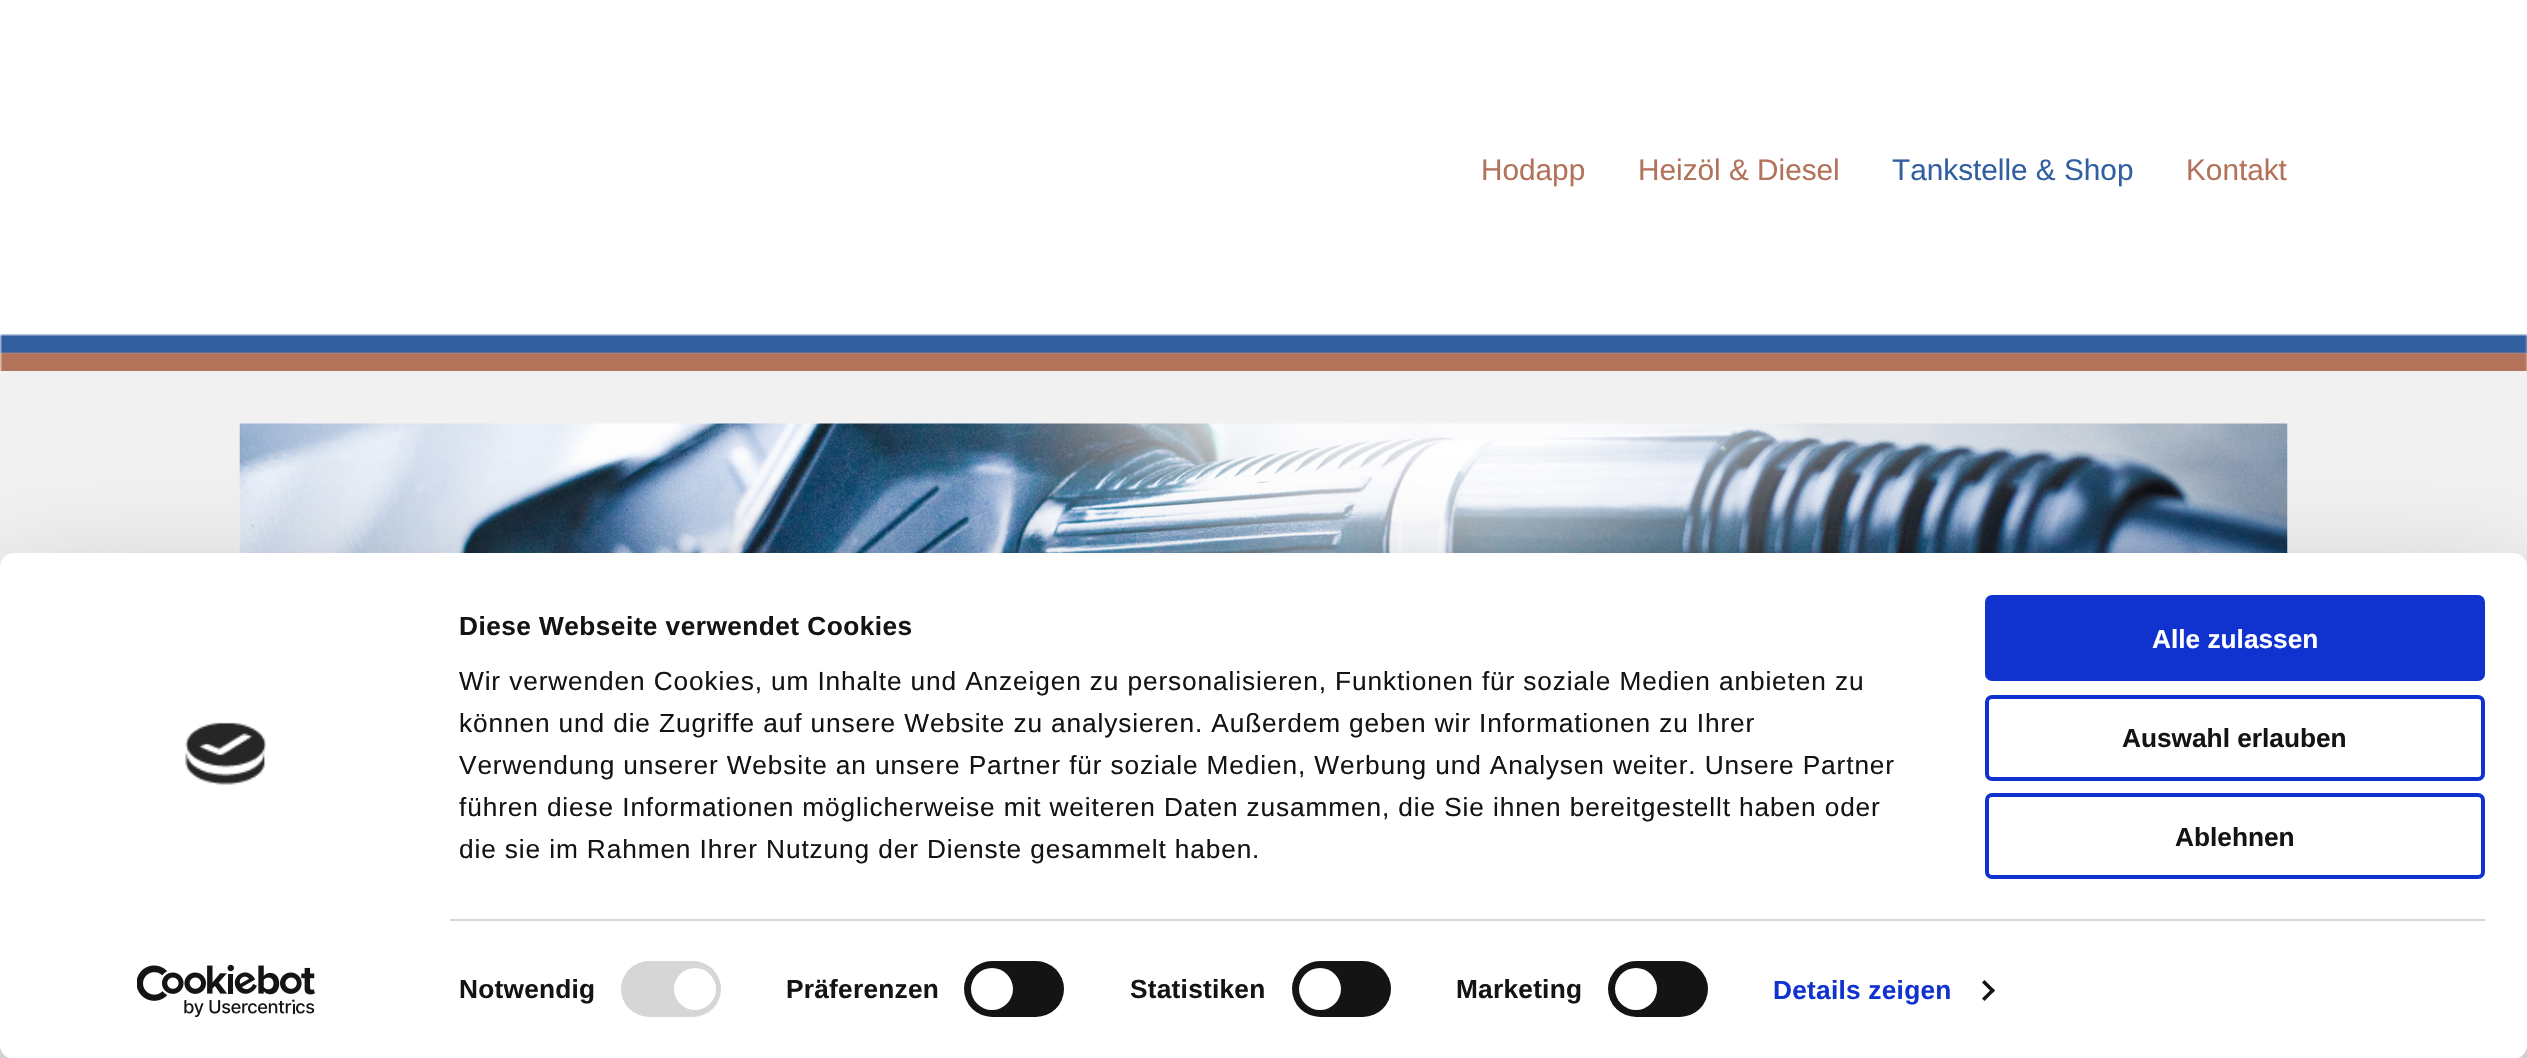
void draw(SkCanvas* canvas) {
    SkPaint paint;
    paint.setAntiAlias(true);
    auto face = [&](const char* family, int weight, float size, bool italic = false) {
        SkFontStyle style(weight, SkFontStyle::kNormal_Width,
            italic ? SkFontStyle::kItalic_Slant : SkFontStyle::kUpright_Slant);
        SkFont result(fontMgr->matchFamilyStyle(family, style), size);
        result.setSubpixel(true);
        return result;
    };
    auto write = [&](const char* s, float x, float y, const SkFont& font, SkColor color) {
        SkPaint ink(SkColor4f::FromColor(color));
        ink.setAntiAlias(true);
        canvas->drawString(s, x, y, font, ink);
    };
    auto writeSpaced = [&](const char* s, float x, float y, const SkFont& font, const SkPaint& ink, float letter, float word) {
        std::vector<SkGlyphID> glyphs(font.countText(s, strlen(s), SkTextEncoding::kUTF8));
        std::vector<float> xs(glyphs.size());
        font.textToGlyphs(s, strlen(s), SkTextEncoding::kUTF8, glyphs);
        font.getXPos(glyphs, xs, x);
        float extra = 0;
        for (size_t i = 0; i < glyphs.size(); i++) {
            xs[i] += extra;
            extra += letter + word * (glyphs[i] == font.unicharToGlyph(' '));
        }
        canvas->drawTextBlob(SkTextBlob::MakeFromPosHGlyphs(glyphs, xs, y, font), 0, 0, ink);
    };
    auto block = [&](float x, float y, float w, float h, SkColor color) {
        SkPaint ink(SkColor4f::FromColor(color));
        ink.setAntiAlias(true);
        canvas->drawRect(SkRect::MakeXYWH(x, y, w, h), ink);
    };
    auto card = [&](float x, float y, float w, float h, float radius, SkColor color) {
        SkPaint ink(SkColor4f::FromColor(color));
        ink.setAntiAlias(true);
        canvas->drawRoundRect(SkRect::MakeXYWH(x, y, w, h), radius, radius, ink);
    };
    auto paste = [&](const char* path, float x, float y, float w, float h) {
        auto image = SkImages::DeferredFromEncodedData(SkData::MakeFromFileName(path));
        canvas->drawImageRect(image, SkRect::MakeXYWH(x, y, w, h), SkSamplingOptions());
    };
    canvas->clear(SkColorSetRGB(241, 241, 241));
    block(0, 0, 2527, 371, SK_ColorWHITE);
    paste("pic1.png", 0, 334, 2527, 37);
    auto kFont1 = face("Liberation Sans", 400, 29.75f);
    write("Hodapp", 1481, 180, kFont1, SkColorSetRGB(179, 114, 90));
    write("Heizöl & Diesel", 1638, 180, kFont1, SkColorSetRGB(179, 114, 90));
    write("Tankstelle & Shop", 1892, 180, kFont1, SkColorSetRGB(50, 95, 160));
    write("Kontakt", 2186, 180, kFont1, SkColorSetRGB(179, 114, 90));
    paste("pic2.png", 239, 423, 2049, 130);
    paint.setColor(SkColorSetARGB(77, 0, 0, 0));
    paint.setMaskFilter(SkMaskFilter::MakeBlur(kNormal_SkBlurStyle, 61));
    canvas->drawRoundRect(SkRect::MakeXYWH(0, 606, 2527, 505), 14, 14, paint);
    paint.setMaskFilter(nullptr);
    card(0, 553, 2527, 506, 14, SK_ColorWHITE);
    paste("pic3.png", 185, 722, 81, 63);
    paste("pic4.png", 137, 964, 178, 53);
    auto kFont2 = face("Liberation Sans", 700, 26.25f);
    paint.setColor(SkColorSetRGB(20, 20, 20));
    writeSpaced("Diese Webseite verwendet Cookies", 459, 635, kFont2, paint, 0.45f, 0);
    auto kFont3 = face("Liberation Sans", 400, 26.25f);
    writeSpaced("Wir verwenden Cookies, um Inhalte und Anzeigen zu personalisieren, Funktionen für soziale Medien anbieten zu", 459, 690, kFont3, paint, 0.88f, 0);
    writeSpaced("können und die Zugriffe auf unsere Website zu analysieren. Außerdem geben wir Informationen zu Ihrer", 459, 732, kFont3, paint, 0.88f, 0);
    writeSpaced("Verwendung unserer Website an unsere Partner für soziale Medien, Werbung und Analysen weiter. Unsere Partner", 459, 774, kFont3, paint, 0.88f, 0);
    writeSpaced("führen diese Informationen möglicherweise mit weiteren Daten zusammen, die Sie ihnen bereitgestellt haben oder", 459, 816, kFont3, paint, 0.88f, 0);
    writeSpaced("die sie im Rahmen Ihrer Nutzung der Dienste gesammelt haben.", 459, 858, kFont3, paint, 0.88f, 0);
    block(450, 919, 2035, 2, SkColorSetRGB(214, 214, 214));
    writeSpaced("Notwendig", 459, 998, kFont2, paint, 0.25f, 0);
    card(621, 961, 100, 56, 28, SkColorSetRGB(214, 214, 214));
    paint.setColor(SK_ColorWHITE);
    canvas->drawCircle(695, 989, 21, paint);
    paint.setColor(SkColorSetRGB(20, 20, 20));
    writeSpaced("Präferenzen", 786, 998, kFont2, paint, 0.25f, 0);
    card(964, 961, 100, 56, 28, SkColorSetRGB(20, 20, 20));
    paint.setColor(SK_ColorWHITE);
    canvas->drawCircle(992, 989, 21, paint);
    paint.setColor(SkColorSetRGB(20, 20, 20));
    writeSpaced("Statistiken", 1130, 998, kFont2, paint, 0.25f, 0);
    card(1292, 961, 99, 56, 28, SkColorSetRGB(20, 20, 20));
    paint.setColor(SK_ColorWHITE);
    canvas->drawCircle(1320, 989, 21, paint);
    paint.setColor(SkColorSetRGB(20, 20, 20));
    writeSpaced("Marketing", 1456, 998, kFont2, paint, 0.25f, 0);
    card(1608, 961, 100, 56, 28, SkColorSetRGB(20, 20, 20));
    paint.setColor(SK_ColorWHITE);
    canvas->drawCircle(1636, 989, 21, paint);
    paint.setColor(SkColorSetRGB(16, 50, 207));
    writeSpaced("Details zeigen", 1773, 999, kFont2, paint, 0.25f, 0);
    paint.setColor(SkColorSetRGB(20, 20, 20));
    canvas->drawPath(SkPathBuilder().moveTo(1984.5f, 980).lineTo(1995, 990.5f).lineTo(1992.5f, 993).lineTo(1982, 982.5f).close().detach(), paint);
    canvas->drawPath(SkPathBuilder().moveTo(1992.5f, 988).lineTo(1995, 990.5f).lineTo(1984.5f, 1001).lineTo(1982, 998.5f).close().detach(), paint);
    paint.setColor(SkColorSetRGB(16, 50, 207));
    canvas->drawRoundRect(SkRect::MakeXYWH(1987, 597, 496, 82), 5, 5, paint);
    paint.setStyle(SkPaint::kStroke_Style);
    paint.setStrokeWidth(4);
    canvas->drawRoundRect(SkRect::MakeXYWH(1987, 597, 496, 82), 5, 5, paint);
    write("Alle zulassen", 2152, 648, kFont2, SK_ColorWHITE);
    canvas->drawRoundRect(SkRect::MakeXYWH(1987, 697, 496, 82), 5, 5, paint);
    write("Auswahl erlauben", 2122, 747, kFont2, SkColorSetRGB(20, 20, 20));
    canvas->drawRoundRect(SkRect::MakeXYWH(1987, 795, 496, 82), 5, 5, paint);
    write("Ablehnen", 2175, 846, kFont2, SkColorSetRGB(20, 20, 20));
}
